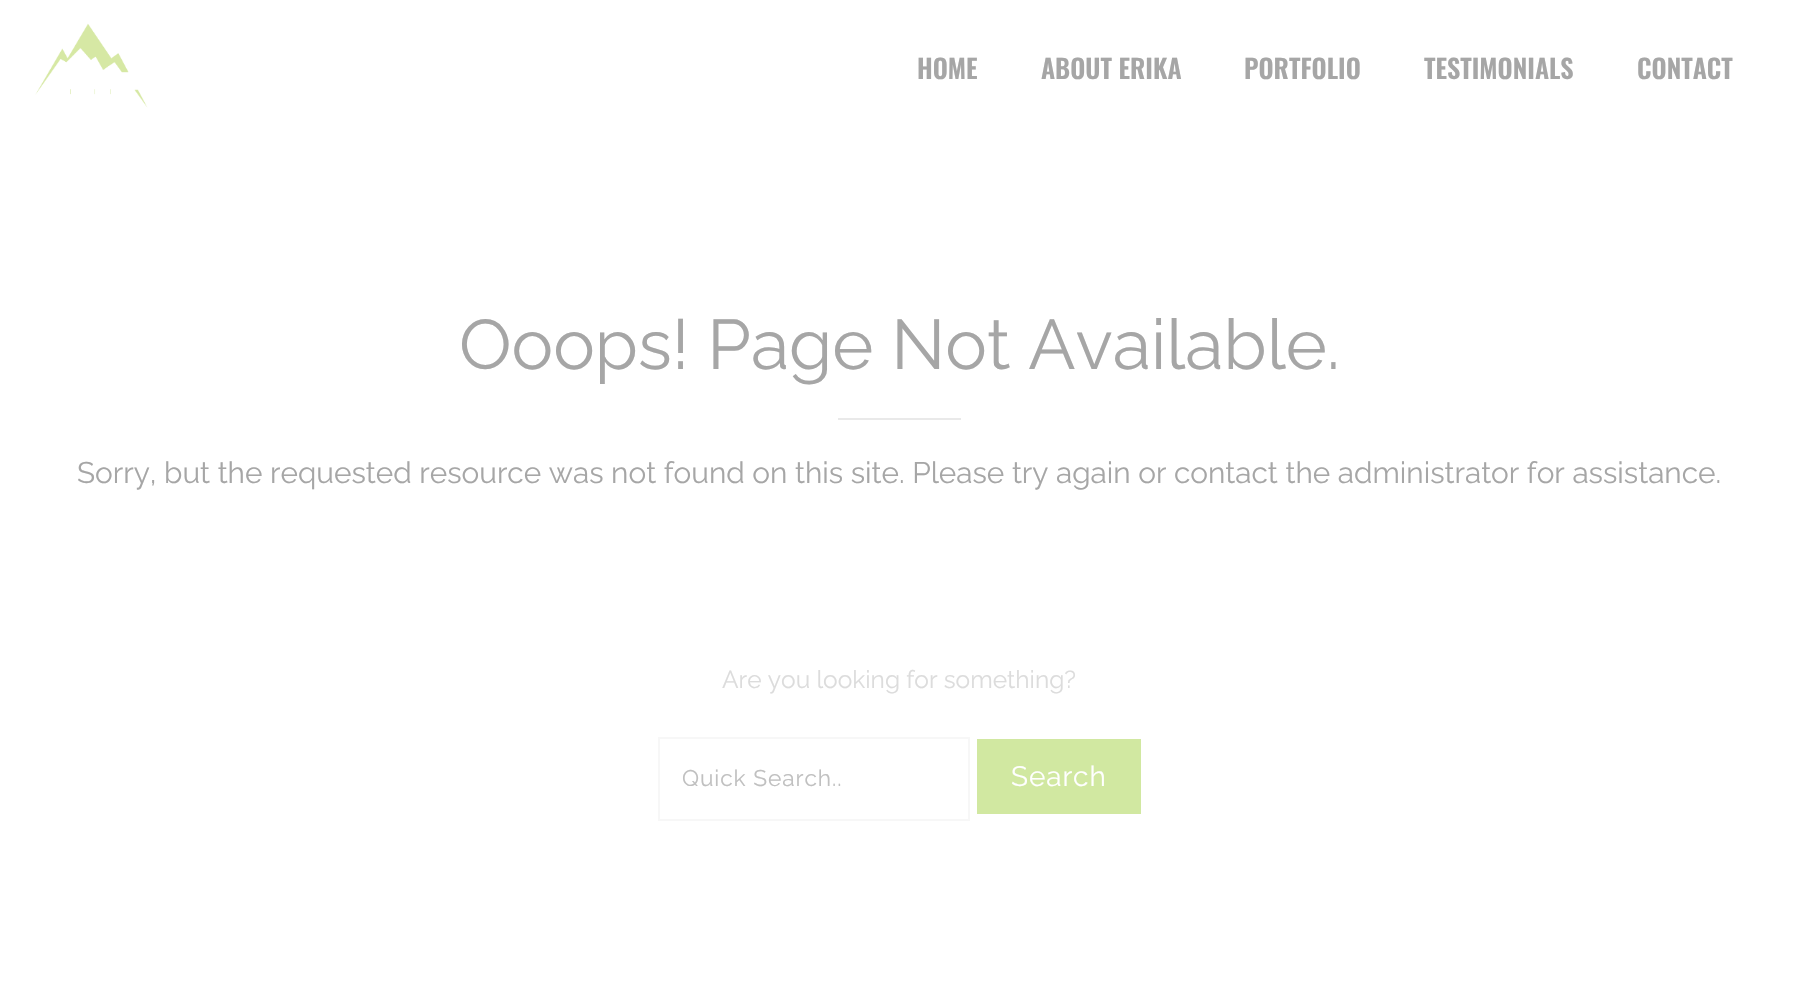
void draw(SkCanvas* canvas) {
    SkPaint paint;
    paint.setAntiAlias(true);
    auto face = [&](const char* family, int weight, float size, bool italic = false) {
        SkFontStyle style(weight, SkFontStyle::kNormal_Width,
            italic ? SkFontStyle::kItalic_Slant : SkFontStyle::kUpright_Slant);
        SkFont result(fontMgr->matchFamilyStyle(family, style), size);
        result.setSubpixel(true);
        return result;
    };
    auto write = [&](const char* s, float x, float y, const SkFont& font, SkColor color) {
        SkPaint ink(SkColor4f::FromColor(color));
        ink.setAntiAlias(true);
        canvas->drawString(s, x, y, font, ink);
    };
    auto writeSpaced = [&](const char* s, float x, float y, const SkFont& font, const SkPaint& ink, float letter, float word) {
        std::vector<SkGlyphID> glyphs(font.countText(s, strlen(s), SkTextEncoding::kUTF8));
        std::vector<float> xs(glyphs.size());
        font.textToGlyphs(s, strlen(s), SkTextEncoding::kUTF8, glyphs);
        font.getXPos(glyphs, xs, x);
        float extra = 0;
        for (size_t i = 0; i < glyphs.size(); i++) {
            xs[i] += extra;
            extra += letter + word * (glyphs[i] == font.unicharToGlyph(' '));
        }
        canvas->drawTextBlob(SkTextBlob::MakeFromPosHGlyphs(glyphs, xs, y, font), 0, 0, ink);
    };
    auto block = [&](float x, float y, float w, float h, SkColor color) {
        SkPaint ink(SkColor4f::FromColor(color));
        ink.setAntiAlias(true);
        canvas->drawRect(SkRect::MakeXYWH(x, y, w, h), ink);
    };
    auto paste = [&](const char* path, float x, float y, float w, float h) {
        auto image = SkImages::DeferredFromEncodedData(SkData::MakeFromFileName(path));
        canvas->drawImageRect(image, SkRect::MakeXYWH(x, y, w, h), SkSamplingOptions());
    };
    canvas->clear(SK_ColorWHITE);
    paste("pic1.png", 35, 23, 113, 85);
    auto kFont1 = face("Oswald", 600, 26.25f);
    write("HOME", 917, 79, kFont1, SkColorSetRGB(166, 166, 166));
    write("ABOUT ERIKA", 1041, 79, kFont1, SkColorSetRGB(166, 166, 166));
    write("PORTFOLIO", 1244, 79, kFont1, SkColorSetRGB(166, 166, 166));
    write("TESTIMONIALS", 1424, 79, kFont1, SkColorSetRGB(166, 166, 166));
    write("CONTACT", 1637, 79, kFont1, SkColorSetRGB(166, 166, 166));
    auto kFont2 = face("Raleway", 100, 70);
    write("Ooops! Page Not Available.", 459, 369, kFont2, SkColorSetRGB(166, 166, 166));
    block(838, 418, 123, 2, SkColorSetRGB(233, 233, 233));
    auto kFont3 = face("Raleway", 100, 29.75f);
    write("Sorry, but the requested resource was not found on this site. Please try again or contact the administrator for assistance.", 77, 483, kFont3, SkColorSetRGB(166, 166, 166));
    auto kFont4 = face("Raleway", 100, 24.5f);
    write("Are you looking for something?", 722, 688, kFont4, SkColorSetRGB(220, 220, 220));
    paint.setStyle(SkPaint::kStroke_Style);
    paint.setStrokeWidth(2);
    paint.setColor(SkColorSetRGB(247, 247, 247));
    canvas->drawRect(SkRect::MakeXYWH(659, 738, 310, 82), paint);
    auto kFont5 = face("Raleway", 100, 22.75f);
    paint.setStyle(SkPaint::kFill_Style);
    paint.setColor(SkColorSetRGB(192, 192, 192));
    writeSpaced("Quick Search..", 682, 786, kFont5, paint, 0.9f, 0);
    block(977, 739, 164, 75, SkColorSetRGB(209, 232, 161));
    auto kFont6 = face("Raleway", 100, 28);
    paint.setColor(SK_ColorWHITE);
    writeSpaced("Search", 1011, 786, kFont6, paint, 0.9f, 0);
}
